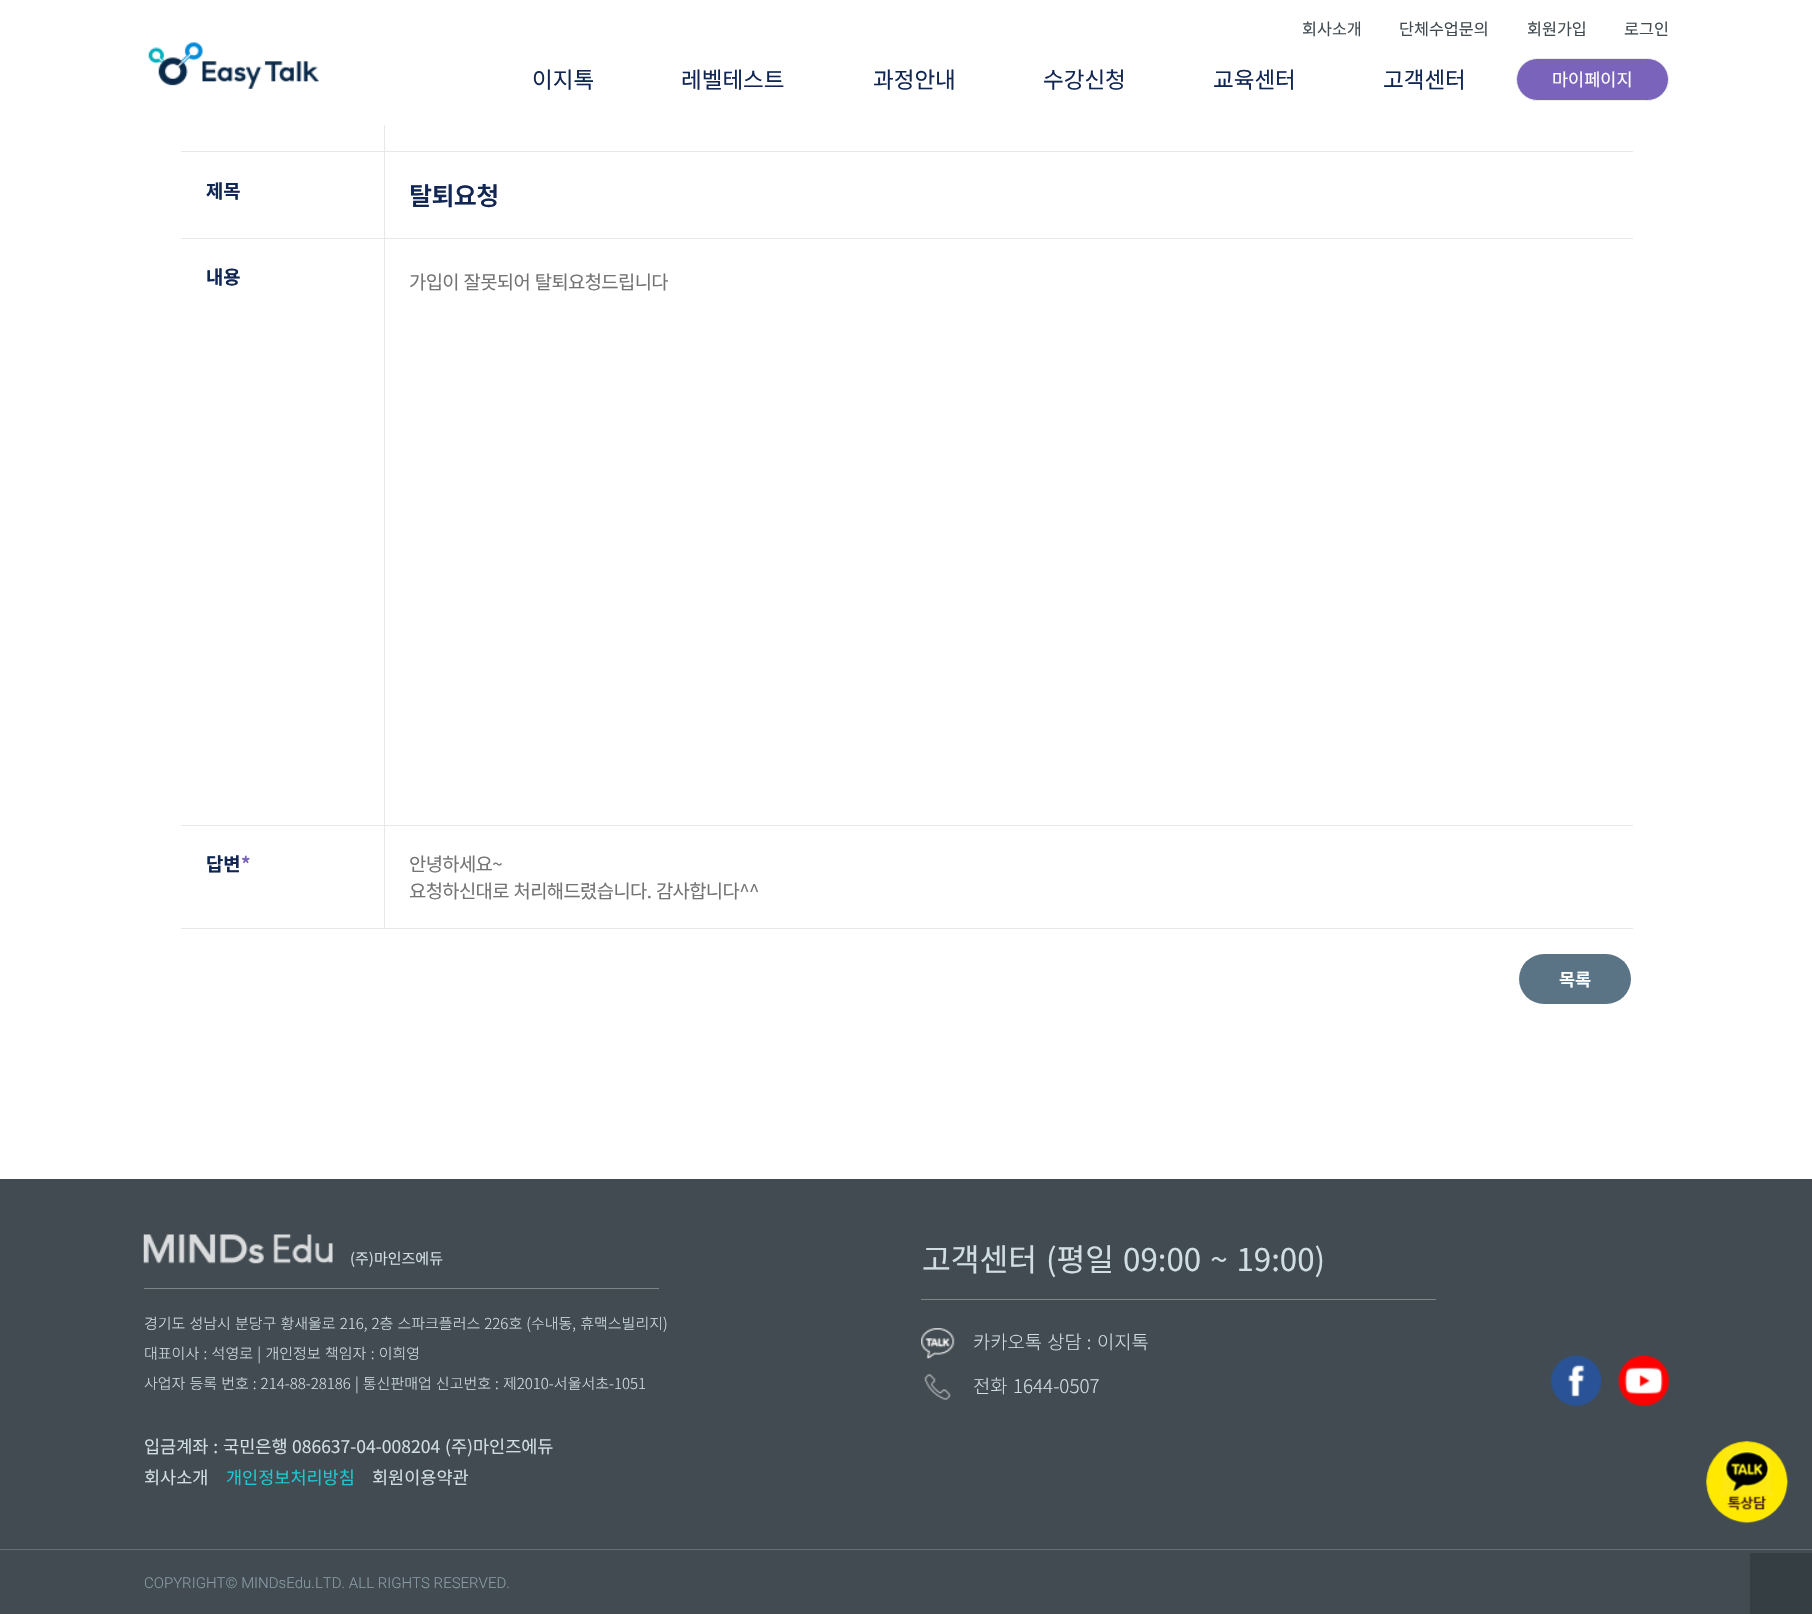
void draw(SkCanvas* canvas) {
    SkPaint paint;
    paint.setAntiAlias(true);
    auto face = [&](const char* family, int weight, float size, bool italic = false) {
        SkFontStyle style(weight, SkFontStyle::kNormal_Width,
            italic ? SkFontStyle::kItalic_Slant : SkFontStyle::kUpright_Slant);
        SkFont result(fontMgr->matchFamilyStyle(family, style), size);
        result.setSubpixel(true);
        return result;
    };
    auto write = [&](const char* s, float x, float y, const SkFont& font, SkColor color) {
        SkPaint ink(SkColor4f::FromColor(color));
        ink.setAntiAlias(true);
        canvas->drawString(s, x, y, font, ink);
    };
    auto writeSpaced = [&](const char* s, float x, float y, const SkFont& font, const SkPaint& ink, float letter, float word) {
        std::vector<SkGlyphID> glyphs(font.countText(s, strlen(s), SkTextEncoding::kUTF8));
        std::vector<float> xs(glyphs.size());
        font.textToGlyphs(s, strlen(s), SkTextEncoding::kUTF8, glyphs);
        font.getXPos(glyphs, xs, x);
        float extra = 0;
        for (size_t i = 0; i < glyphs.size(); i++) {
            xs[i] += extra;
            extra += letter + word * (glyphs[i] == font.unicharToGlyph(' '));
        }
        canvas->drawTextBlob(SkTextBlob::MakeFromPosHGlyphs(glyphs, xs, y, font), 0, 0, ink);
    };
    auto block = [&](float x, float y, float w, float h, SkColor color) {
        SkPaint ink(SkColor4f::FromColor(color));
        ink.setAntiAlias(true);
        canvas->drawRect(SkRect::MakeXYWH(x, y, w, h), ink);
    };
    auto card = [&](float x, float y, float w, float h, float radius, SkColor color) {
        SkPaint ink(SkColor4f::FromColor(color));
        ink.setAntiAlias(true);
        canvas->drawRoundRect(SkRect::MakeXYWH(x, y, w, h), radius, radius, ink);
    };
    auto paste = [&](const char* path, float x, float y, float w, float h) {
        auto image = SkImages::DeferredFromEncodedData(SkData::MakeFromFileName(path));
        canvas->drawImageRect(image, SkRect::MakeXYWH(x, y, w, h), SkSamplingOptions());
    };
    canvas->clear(SK_ColorWHITE);
    auto kFont1 = face("Noto Sans KR", 400, 16.25f);
    write("회사소개", 1302, 35, kFont1, SkColorSetRGB(65, 75, 81));
    write("단체수업문의", 1399, 35, kFont1, SkColorSetRGB(65, 75, 81));
    write("회원가입", 1527, 35, kFont1, SkColorSetRGB(65, 75, 81));
    write("로그인", 1624, 35, kFont1, SkColorSetRGB(65, 75, 81));
    paste("pic1.png", 148, 42, 171, 47);
    auto kFont2 = face("Noto Sans KR", 400, 22.5f);
    write("이지톡", 532, 88, kFont2, SkColorSetRGB(17, 38, 83));
    write("레벨테스트", 681, 88, kFont2, SkColorSetRGB(17, 38, 83));
    write("과정안내", 873, 88, kFont2, SkColorSetRGB(17, 38, 83));
    write("수강신청", 1043, 88, kFont2, SkColorSetRGB(17, 38, 83));
    write("교육센터", 1213, 88, kFont2, SkColorSetRGB(17, 38, 83));
    write("고객센터", 1383, 88, kFont2, SkColorSetRGB(17, 38, 83));
    paint.setColor(SkColorSetRGB(122, 99, 186));
    canvas->drawRoundRect(SkRect::MakeXYWH(1516.5f, 58.5f, 152, 42), 21, 21, paint);
    paint.setStyle(SkPaint::kStroke_Style);
    paint.setStrokeWidth(1);
    paint.setColor(SkColorSetRGB(238, 238, 238));
    canvas->drawRoundRect(SkRect::MakeXYWH(1516.5f, 58.5f, 152, 42), 21, 21, paint);
    auto kFont3 = face("Noto Sans KR", 400, 17.5f);
    write("마이페이지", 1552, 86, kFont3, SK_ColorWHITE);
    block(181, 151, 1452, 1, SkColorSetRGB(232, 232, 232));
    block(181, 238, 1452, 1, SkColorSetRGB(232, 232, 232));
    auto kFont4 = face("Noto Sans KR", 700, 18.75f);
    write("제목", 206, 198, kFont4, SkColorSetRGB(17, 38, 83));
    auto kFont5 = face("Noto Sans KR", 600, 25);
    paint.setStyle(SkPaint::kFill_Style);
    paint.setColor(SkColorSetRGB(17, 38, 83));
    writeSpaced("탈퇴요청", 409, 205, kFont5, paint, -0.6f, 0);
    block(181, 825, 1452, 1, SkColorSetRGB(232, 232, 232));
    write("내용", 206, 284, kFont4, SkColorSetRGB(17, 38, 83));
    auto kFont6 = face("Noto Sans KR", 400, 18.75f);
    paint.setColor(SkColorSetRGB(116, 116, 116));
    writeSpaced("가입이 잘못되어 탈퇴요청드립니다", 409, 289, kFont6, paint, -0.6f, 1);
    block(181, 928, 1452, 1, SkColorSetRGB(232, 232, 232));
    write("답변", 206, 871, kFont4, SkColorSetRGB(17, 38, 83));
    write("*", 241, 871, kFont4, SkColorSetRGB(122, 99, 186));
    block(384, 125, 1, 804, SkColorSetRGB(232, 232, 232));
    writeSpaced("안녕하세요~", 409, 871, kFont6, paint, -0.6f, 0);
    writeSpaced("요청하신대로 처리해드렸습니다. 감사합니다^^", 409, 898, kFont6, paint, -0.6f, 1);
    card(1519, 954, 112, 50, 25, SkColorSetRGB(90, 115, 133));
    auto kFont7 = face("Noto Sans KR", 600, 17.5f);
    write("목록", 1559, 986, kFont7, SK_ColorWHITE);
    block(0, 1179, 1812, 370, SkColorSetRGB(65, 75, 81));
    block(144, 1288, 515, 1, SkColorSetRGB(126, 133, 137));
    paste("pic2.png", 143, 1234, 190, 30);
    auto kFont8 = face("Noto Sans KR", 400, 15);
    write("(주)마인즈에듀", 350, 1264, kFont8, SkColorSetRGB(208, 221, 228));
    auto kFont9 = face("Noto Sans KR", 300, 15);
    paint.setColor(SkColorSetRGB(208, 221, 228));
    writeSpaced("경기도 성남시 분당구 황새울로 216, 2층 스파크플러스 226호 (수내동, 휴맥스빌리지)", 144, 1329, kFont9, paint, 0, 0.75f);
    writeSpaced("대표이사 : 석영로 | 개인정보 책임자 : 이희영", 144, 1359, kFont9, paint, 0, 1);
    writeSpaced("사업자 등록 번호 : 214-88-28186 | 통신판매업 신고번호 : 제2010-서울서초-1051", 144, 1389, kFont9, paint, 0, 0.75f);
    writeSpaced("입금계좌 : 국민은행", 144, 1453, kFont3, paint, 0, 1);
    writeSpaced("086637-04-008204 (주)마인즈에듀", 292, 1453, kFont3, paint, 0, 1);
    write("회사소개", 144, 1484, kFont3, SkColorSetRGB(208, 221, 228));
    write("개인정보처리방침", 226, 1484, kFont3, SkColorSetRGB(31, 199, 209));
    write("회원이용약관", 372, 1484, kFont3, SkColorSetRGB(208, 221, 228));
    block(921, 1299, 515, 1, SkColorSetRGB(126, 133, 137));
    auto kFont10 = face("Noto Sans KR", 400, 31.25f);
    writeSpaced("고객센터 (평일 09:00 ~ 19:00)", 922, 1271, kFont10, paint, 0, 2);
    paste("pic3.png", 921, 1328, 34, 31);
    auto kFont11 = face("Noto Sans KR", 300, 18.75f);
    writeSpaced("카카오톡 상담 :", 973, 1349, kFont11, paint, 0, 1);
    write("이지톡", 1097, 1349, kFont11, SkColorSetRGB(208, 221, 228));
    paste("pic4.png", 924, 1374, 27, 26);
    write("전화", 973, 1393, kFont11, SkColorSetRGB(208, 221, 228));
    write("1644-0507", 1013, 1393, kFont11, SkColorSetRGB(208, 221, 228));
    paste("pic5.png", 1551, 1355, 51, 51);
    paste("pic6.png", 1618, 1355, 52, 51);
    paste("pic7.png", 1706, 1441, 83, 83);
    block(0, 1550, 1812, 64, SkColorSetRGB(65, 75, 81));
    block(0, 1549, 1812, 1, SkColorSetRGB(103, 111, 116));
    auto kFont12 = face("Roboto", 300, 15);
    write("COPYRIGHT© MINDsEdu.LTD. ALL RIGHTS RESERVED.", 144, 1588, kFont12, SkColorSetRGB(136, 155, 166));
    block(1750, 1553, 62, 61, SkColorSetRGB(53, 62, 66));
}
